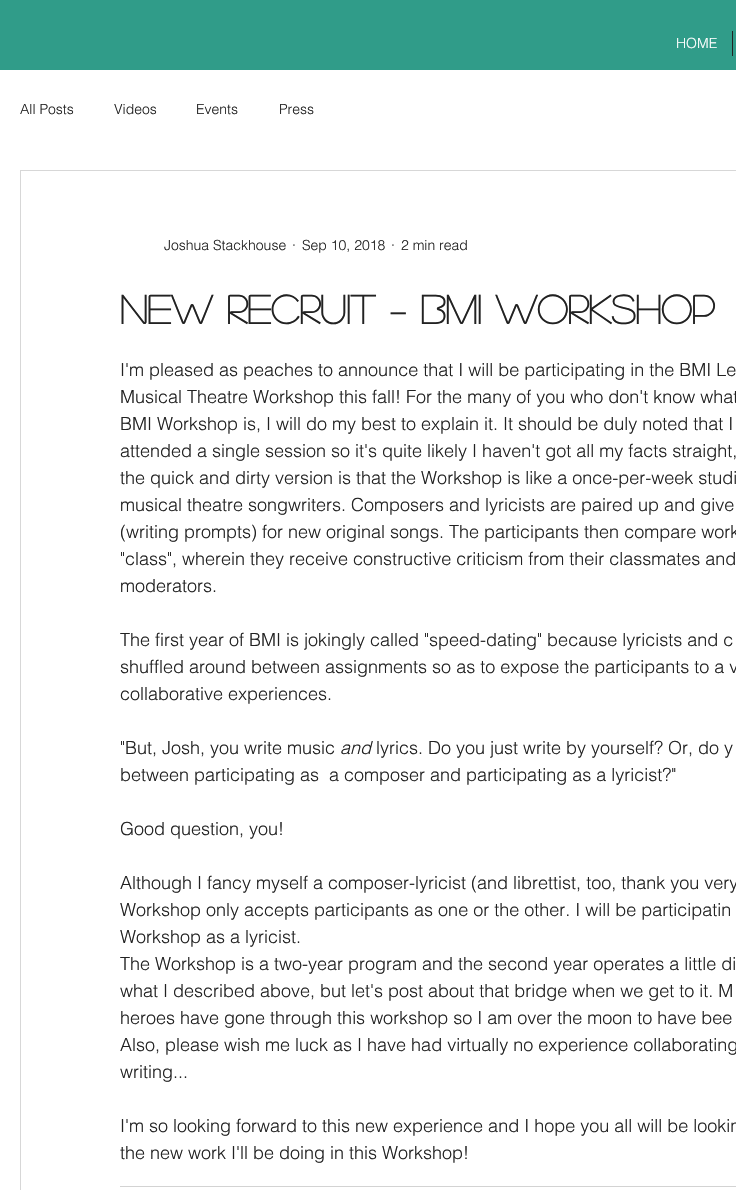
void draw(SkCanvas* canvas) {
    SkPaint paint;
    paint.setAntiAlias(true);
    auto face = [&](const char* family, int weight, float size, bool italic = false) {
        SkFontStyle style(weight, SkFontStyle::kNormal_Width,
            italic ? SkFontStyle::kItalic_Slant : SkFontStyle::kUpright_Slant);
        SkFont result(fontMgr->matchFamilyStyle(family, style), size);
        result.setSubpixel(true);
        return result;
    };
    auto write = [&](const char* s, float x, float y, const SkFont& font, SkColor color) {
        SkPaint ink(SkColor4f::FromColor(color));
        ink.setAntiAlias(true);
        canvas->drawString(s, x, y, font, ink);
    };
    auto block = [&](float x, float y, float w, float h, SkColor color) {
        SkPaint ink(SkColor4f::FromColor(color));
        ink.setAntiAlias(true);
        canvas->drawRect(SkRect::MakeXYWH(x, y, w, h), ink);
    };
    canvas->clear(SkColorSetRGB(48, 156, 137));
    auto kFont1 = face("helvetica", 300, 14);
    write("HOME", 676, 48, kFont1, SK_ColorWHITE);
    block(732, 31, 1, 25, SkColorSetRGB(34, 34, 34));
    block(0, 70, 736, 1120, SK_ColorWHITE);
    write("All Posts", 20, 114, kFont1, SkColorSetRGB(34, 34, 34));
    write("Videos", 114, 114, kFont1, SkColorSetRGB(34, 34, 34));
    write("Events", 196, 114, kFont1, SkColorSetRGB(34, 34, 34));
    write("Press", 279, 114, kFont1, SkColorSetRGB(34, 34, 34));
    paint.setStyle(SkPaint::kStroke_Style);
    paint.setStrokeWidth(1);
    paint.setColor(SkColorSetRGB(215, 215, 215));
    canvas->drawRect(SkRect::MakeXYWH(20.5f, 170.5f, 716, 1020), paint);
    write("Joshua Stackhouse", 164, 250, kFont1, SkColorSetRGB(34, 34, 34));
    write("·", 292, 250, kFont1, SkColorSetRGB(34, 34, 34));
    write("Sep 10, 2018", 302, 250, kFont1, SkColorSetRGB(34, 34, 34));
    write("·", 391, 250, kFont1, SkColorSetRGB(34, 34, 34));
    write("2 min read", 401, 250, kFont1, SkColorSetRGB(34, 34, 34));
    auto kFont2 = face("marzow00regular", 700, 40);
    write("New Recruit – BMI Workshop", 120, 324, kFont2, SkColorSetRGB(34, 34, 34));
    auto kFont3 = face("helvetica", 300, 18);
    write("I'm pleased as peaches to announce that I will be participating in the BMI Le", 120, 376, kFont3, SkColorSetRGB(34, 34, 34));
    write("Musical Theatre Workshop this fall! For the many of you who don't know what", 120, 403, kFont3, SkColorSetRGB(34, 34, 34));
    write("BMI Workshop is, I will do my best to explain it. It should be duly noted that I", 120, 430, kFont3, SkColorSetRGB(34, 34, 34));
    write("attended a single session so it's quite likely I haven't got all my facts straight,", 120, 457, kFont3, SkColorSetRGB(34, 34, 34));
    write("the quick and dirty version is that the Workshop is like a once-per-week studi", 120, 484, kFont3, SkColorSetRGB(34, 34, 34));
    write("musical theatre songwriters. Composers and lyricists are paired up and give", 120, 511, kFont3, SkColorSetRGB(34, 34, 34));
    write("(writing prompts) for new original songs. The participants then compare work", 120, 538, kFont3, SkColorSetRGB(34, 34, 34));
    write("\"class\", wherein they receive constructive criticism from their classmates and", 120, 565, kFont3, SkColorSetRGB(34, 34, 34));
    write("moderators.", 120, 592, kFont3, SkColorSetRGB(34, 34, 34));
    write("The first year of BMI is jokingly called \"speed-dating\" because lyricists and c", 120, 646, kFont3, SkColorSetRGB(34, 34, 34));
    write("shuffled around between assignments so as to expose the participants to a v", 120, 673, kFont3, SkColorSetRGB(34, 34, 34));
    write("collaborative experiences.", 120, 700, kFont3, SkColorSetRGB(34, 34, 34));
    write("\"But, Josh, you write music", 120, 754, kFont3, SkColorSetRGB(34, 34, 34));
    auto kFont4 = face("helvetica", 300, 18, true);
    write("and", 340, 754, kFont4, SkColorSetRGB(34, 34, 34));
    write("lyrics. Do you just write by yourself? Or, do y", 376, 754, kFont3, SkColorSetRGB(34, 34, 34));
    write("between participating as  a composer and participating as a lyricist?\"", 120, 781, kFont3, SkColorSetRGB(34, 34, 34));
    write("Good question, you!", 120, 835, kFont3, SkColorSetRGB(34, 34, 34));
    write("Although I fancy myself a composer-lyricist (and librettist, too, thank you very", 120, 889, kFont3, SkColorSetRGB(34, 34, 34));
    write("Workshop only accepts participants as one or the other. I will be participatin", 120, 916, kFont3, SkColorSetRGB(34, 34, 34));
    write("Workshop as a lyricist.", 120, 943, kFont3, SkColorSetRGB(34, 34, 34));
    write("The Workshop is a two-year program and the second year operates a little di", 120, 970, kFont3, SkColorSetRGB(34, 34, 34));
    write("what I described above, but let's post about that bridge when we get to it. M", 120, 997, kFont3, SkColorSetRGB(34, 34, 34));
    write("heroes have gone through this workshop so I am over the moon to have bee", 120, 1024, kFont3, SkColorSetRGB(34, 34, 34));
    write("Also, please wish me luck as I have had virtually no experience collaborating", 120, 1051, kFont3, SkColorSetRGB(34, 34, 34));
    write("writing...", 120, 1078, kFont3, SkColorSetRGB(34, 34, 34));
    write("I'm so looking forward to this new experience and I hope you all will be lookin", 120, 1132, kFont3, SkColorSetRGB(34, 34, 34));
    write("the new work I'll be doing in this Workshop!", 120, 1159, kFont3, SkColorSetRGB(34, 34, 34));
    block(120, 1186, 616, 1, SkColorSetRGB(211, 211, 211));
}
